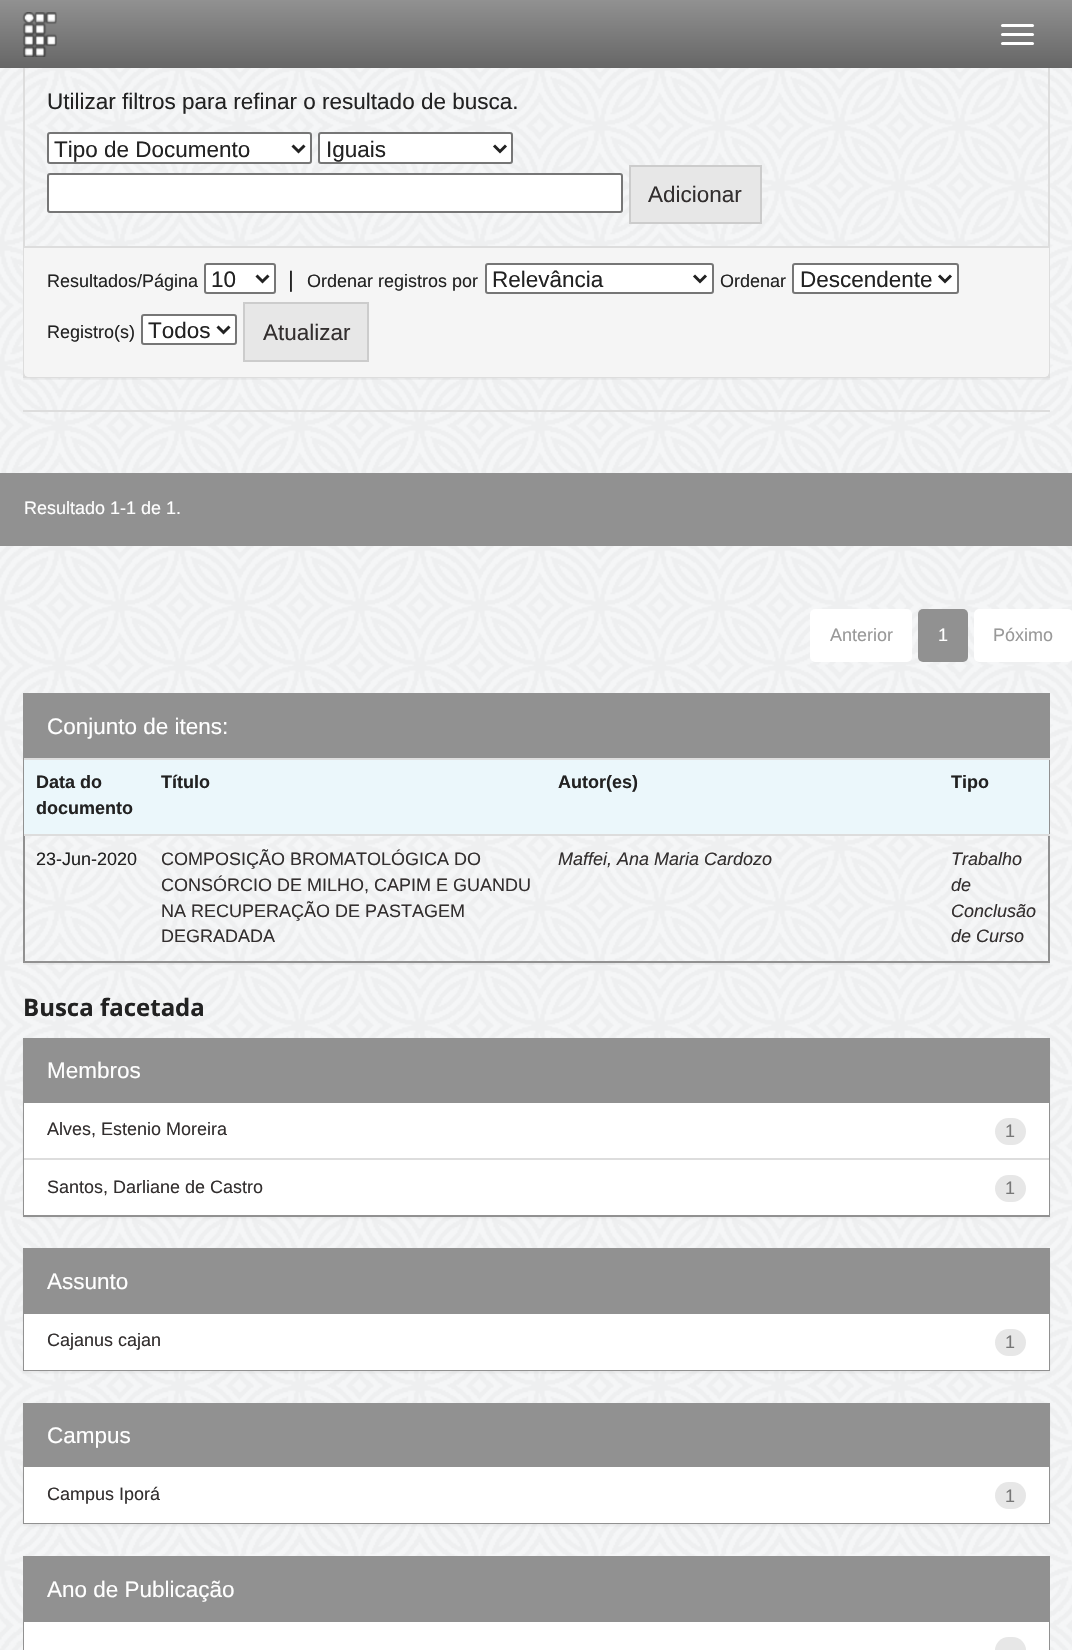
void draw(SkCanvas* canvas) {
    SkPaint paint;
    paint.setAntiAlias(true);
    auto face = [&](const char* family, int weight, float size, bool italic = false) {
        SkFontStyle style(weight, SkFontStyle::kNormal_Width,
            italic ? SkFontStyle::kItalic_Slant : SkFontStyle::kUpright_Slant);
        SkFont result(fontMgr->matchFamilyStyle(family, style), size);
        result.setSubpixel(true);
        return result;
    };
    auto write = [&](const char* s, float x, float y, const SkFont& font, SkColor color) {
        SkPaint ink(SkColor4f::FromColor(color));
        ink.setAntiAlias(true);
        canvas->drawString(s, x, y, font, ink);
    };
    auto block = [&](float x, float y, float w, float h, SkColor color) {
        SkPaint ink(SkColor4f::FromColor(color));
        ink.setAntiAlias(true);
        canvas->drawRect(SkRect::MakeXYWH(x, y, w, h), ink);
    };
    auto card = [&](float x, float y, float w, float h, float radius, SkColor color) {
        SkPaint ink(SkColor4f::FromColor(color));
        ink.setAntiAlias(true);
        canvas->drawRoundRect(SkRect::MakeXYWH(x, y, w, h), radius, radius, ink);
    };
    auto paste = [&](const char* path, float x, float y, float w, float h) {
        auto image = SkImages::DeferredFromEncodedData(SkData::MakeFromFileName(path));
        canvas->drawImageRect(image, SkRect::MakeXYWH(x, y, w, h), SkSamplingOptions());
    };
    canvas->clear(SK_ColorWHITE);
    paste("pic1.png", 0, 68, 1072, 1582);
    canvas->save();
    canvas->clipRect(SkRect::MakeXYWH(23, 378, 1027, 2));
    paint.setColor(SkColorSetARGB(13, 0, 0, 0));
    paint.setMaskFilter(SkMaskFilter::MakeBlur(kNormal_SkBlurStyle, 1));
    canvas->drawRect(SkRect::MakeXYWH(23, -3, 1027, 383), paint);
    paint.setMaskFilter(nullptr);
    canvas->restore();
    paint.setStyle(SkPaint::kStroke_Style);
    paint.setStrokeWidth(2);
    paint.setColor(SkColorSetRGB(221, 221, 221));
    canvas->drawRect(SkRect::MakeXYWH(24, -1, 1025, 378), paint);
    paint.setStyle(SkPaint::kFill_Style);
    {
        const SkColor colors[] = {SkColorSetRGB(145, 145, 145), SkColorSetRGB(102, 102, 102)};
        const float stops[] = {0, 1};
        const SkPoint ends[] = {{536, 0}, {536, 68}};
        paint.setShader(SkGradientShader::MakeLinear(ends, colors, stops, 2, SkTileMode::kClamp));
        paint.setAlpha(255);
    }
    canvas->drawRect(SkRect::MakeXYWH(0, 0, 1072, 68), paint);
    paste("pic2.png", 22, 12, 35, 45);
    card(1001, 24, 33, 3, 1.5f, SK_ColorWHITE);
    card(1001, 33, 33, 3, 1.5f, SK_ColorWHITE);
    card(1001, 42, 33, 3, 1.5f, SK_ColorWHITE);
    auto kFont1 = face("Liberation Sans", 400, 22.5f);
    write("Utilizar filtros para refinar o resultado de busca.", 47, 109, kFont1, SkColorSetRGB(34, 34, 34));
    paint.setShader(nullptr);
    paint.setColor(SK_ColorWHITE);
    canvas->drawRoundRect(SkRect::MakeXYWH(48, 133, 263, 30), 2, 2, paint);
    paint.setStyle(SkPaint::kStroke_Style);
    paint.setColor(SkColorSetRGB(118, 118, 118));
    canvas->drawRoundRect(SkRect::MakeXYWH(48, 133, 263, 30), 2, 2, paint);
    paint.setStrokeWidth(3);
    paint.setColor(SkColorSetRGB(34, 34, 34));
    canvas->drawPath(SkPathBuilder().moveTo(292.5f, 145.5f).lineTo(298.5f, 151.5f).lineTo(304.5f, 145.5f).detach(), paint);
    write("Tipo de Documento", 54, 157, kFont1, SkColorSetRGB(34, 34, 34));
    paint.setStyle(SkPaint::kFill_Style);
    paint.setColor(SK_ColorWHITE);
    canvas->drawRoundRect(SkRect::MakeXYWH(319, 133, 193, 30), 2, 2, paint);
    paint.setStyle(SkPaint::kStroke_Style);
    paint.setStrokeWidth(2);
    paint.setColor(SkColorSetRGB(118, 118, 118));
    canvas->drawRoundRect(SkRect::MakeXYWH(319, 133, 193, 30), 2, 2, paint);
    paint.setStrokeWidth(3);
    paint.setColor(SkColorSetRGB(34, 34, 34));
    canvas->drawPath(SkPathBuilder().moveTo(494, 145.5f).lineTo(500, 151.5f).lineTo(506, 145.5f).detach(), paint);
    write("Iguais", 326, 157, kFont1, SkColorSetRGB(34, 34, 34));
    paint.setStyle(SkPaint::kFill_Style);
    paint.setColor(SK_ColorWHITE);
    canvas->drawRoundRect(SkRect::MakeXYWH(48, 174, 574, 38), 2, 2, paint);
    paint.setStyle(SkPaint::kStroke_Style);
    paint.setStrokeWidth(2);
    paint.setColor(SkColorSetRGB(118, 118, 118));
    canvas->drawRoundRect(SkRect::MakeXYWH(48, 174, 574, 38), 2, 2, paint);
    paint.setStyle(SkPaint::kFill_Style);
    paint.setColor(SkColorSetRGB(231, 231, 231));
    canvas->drawRect(SkRect::MakeXYWH(630, 166, 131, 57), paint);
    paint.setStyle(SkPaint::kStroke_Style);
    paint.setColor(SkColorSetRGB(204, 204, 204));
    canvas->drawRect(SkRect::MakeXYWH(630, 166, 131, 57), paint);
    write("Adicionar", 648, 202, kFont1, SkColorSetRGB(51, 47, 47));
    paint.setStyle(SkPaint::kFill_Style);
    paint.setColor(SkColorSetRGB(245, 245, 245));
    canvas->drawPath(SkPathBuilder().moveTo(24, 246).lineTo(1049, 246).lineTo(1049, 372).cubicTo(1049, 375, 1047, 377, 1044, 377).lineTo(29, 377).cubicTo(26, 377, 24, 375, 24, 372).close().detach(), paint);
    block(24, 246, 1025, 2, SkColorSetRGB(221, 221, 221));
    auto kFont2 = face("Liberation Sans", 400, 18);
    write("Resultados/Página", 47, 287, kFont2, SkColorSetRGB(34, 34, 34));
    paint.setColor(SK_ColorWHITE);
    canvas->drawRoundRect(SkRect::MakeXYWH(205, 264, 70, 29), 2, 2, paint);
    paint.setStyle(SkPaint::kStroke_Style);
    paint.setColor(SkColorSetRGB(118, 118, 118));
    canvas->drawRoundRect(SkRect::MakeXYWH(205, 264, 70, 29), 2, 2, paint);
    paint.setStrokeWidth(3);
    paint.setColor(SkColorSetRGB(34, 34, 34));
    canvas->drawPath(SkPathBuilder().moveTo(256.5f, 275.5f).lineTo(262.5f, 281.5f).lineTo(268.5f, 275.5f).detach(), paint);
    write("10", 211, 287, kFont1, SkColorSetRGB(34, 34, 34));
    write("|", 288, 287, kFont1, SkColorSetRGB(34, 34, 34));
    write("Ordenar registros por", 307, 287, kFont2, SkColorSetRGB(34, 34, 34));
    paint.setStyle(SkPaint::kFill_Style);
    paint.setColor(SK_ColorWHITE);
    canvas->drawRoundRect(SkRect::MakeXYWH(486, 264, 227, 29), 2, 2, paint);
    paint.setStyle(SkPaint::kStroke_Style);
    paint.setStrokeWidth(2);
    paint.setColor(SkColorSetRGB(118, 118, 118));
    canvas->drawRoundRect(SkRect::MakeXYWH(486, 264, 227, 29), 2, 2, paint);
    paint.setStrokeWidth(3);
    paint.setColor(SkColorSetRGB(34, 34, 34));
    canvas->drawPath(SkPathBuilder().moveTo(694, 275.5f).lineTo(700, 281.5f).lineTo(706, 275.5f).detach(), paint);
    write("Relevância", 492, 287, kFont1, SkColorSetRGB(34, 34, 34));
    write("Ordenar", 720, 287, kFont2, SkColorSetRGB(34, 34, 34));
    paint.setStyle(SkPaint::kFill_Style);
    paint.setColor(SK_ColorWHITE);
    canvas->drawRoundRect(SkRect::MakeXYWH(793, 264, 165, 29), 2, 2, paint);
    paint.setStyle(SkPaint::kStroke_Style);
    paint.setStrokeWidth(2);
    paint.setColor(SkColorSetRGB(118, 118, 118));
    canvas->drawRoundRect(SkRect::MakeXYWH(793, 264, 165, 29), 2, 2, paint);
    paint.setStrokeWidth(3);
    paint.setColor(SkColorSetRGB(34, 34, 34));
    canvas->drawPath(SkPathBuilder().moveTo(939, 275.5f).lineTo(945, 281.5f).lineTo(951, 275.5f).detach(), paint);
    write("Descendente", 800, 287, kFont1, SkColorSetRGB(34, 34, 34));
    write("Registro(s)", 47, 338, kFont2, SkColorSetRGB(34, 34, 34));
    paint.setStyle(SkPaint::kFill_Style);
    paint.setColor(SK_ColorWHITE);
    canvas->drawRoundRect(SkRect::MakeXYWH(142, 315, 94, 29), 2, 2, paint);
    paint.setStyle(SkPaint::kStroke_Style);
    paint.setStrokeWidth(2);
    paint.setColor(SkColorSetRGB(118, 118, 118));
    canvas->drawRoundRect(SkRect::MakeXYWH(142, 315, 94, 29), 2, 2, paint);
    paint.setStrokeWidth(3);
    paint.setColor(SkColorSetRGB(34, 34, 34));
    canvas->drawPath(SkPathBuilder().moveTo(217.5f, 326.5f).lineTo(223.5f, 332.5f).lineTo(229.5f, 326.5f).detach(), paint);
    write("Todos", 148, 338, kFont1, SkColorSetRGB(34, 34, 34));
    paint.setStyle(SkPaint::kFill_Style);
    paint.setColor(SkColorSetRGB(231, 231, 231));
    canvas->drawRect(SkRect::MakeXYWH(244, 303, 124, 58), paint);
    paint.setStyle(SkPaint::kStroke_Style);
    paint.setStrokeWidth(2);
    paint.setColor(SkColorSetRGB(204, 204, 204));
    canvas->drawRect(SkRect::MakeXYWH(244, 303, 124, 58), paint);
    write("Atualizar", 263, 340, kFont1, SkColorSetRGB(51, 47, 47));
    block(23, 410, 1027, 2, SkColorSetRGB(221, 221, 221));
    block(0, 473, 1072, 73, SkColorSetRGB(145, 145, 145));
    write("Resultado 1-1 de 1.", 24, 514, kFont2, SK_ColorWHITE);
    card(810, 609, 102, 53, 5, SK_ColorWHITE);
    write("Anterior", 830, 641, kFont2, SkColorSetRGB(153, 153, 153));
    card(918, 609, 50, 53, 5, SkColorSetRGB(145, 145, 145));
    write("1", 938, 641, kFont2, SK_ColorWHITE);
    card(974, 609, 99, 53, 5, SK_ColorWHITE);
    write("Póximo", 993, 641, kFont2, SkColorSetRGB(153, 153, 153));
    canvas->save();
    canvas->clipRect(SkRect::MakeXYWH(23, 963, 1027, 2));
    paint.setStyle(SkPaint::kFill_Style);
    paint.setColor(SkColorSetARGB(13, 0, 0, 0));
    paint.setMaskFilter(SkMaskFilter::MakeBlur(kNormal_SkBlurStyle, 1));
    canvas->drawRect(SkRect::MakeXYWH(23, 695, 1027, 270), paint);
    paint.setMaskFilter(nullptr);
    canvas->restore();
    paint.setStyle(SkPaint::kStroke_Style);
    paint.setColor(SkColorSetRGB(145, 145, 145));
    canvas->drawRect(SkRect::MakeXYWH(24, 694, 1025, 268), paint);
    block(25, 695, 1023, 63, SkColorSetRGB(145, 145, 145));
    write("Conjunto de itens:", 47, 734, kFont1, SK_ColorWHITE);
    block(24, 760, 1025, 74, SkColorSetRGB(235, 247, 251));
    auto kFont3 = face("Liberation Sans", 700, 18);
    write("Data do", 36, 788, kFont3, SkColorSetRGB(34, 34, 34));
    write("documento", 36, 814, kFont3, SkColorSetRGB(34, 34, 34));
    write("Título", 161, 788, kFont3, SkColorSetRGB(34, 34, 34));
    write("Autor(es)", 558, 788, kFont3, SkColorSetRGB(34, 34, 34));
    block(24, 758, 1026, 2, SkColorSetRGB(221, 221, 221));
    write("Tipo", 951, 788, kFont3, SkColorSetRGB(34, 34, 34));
    write("23-Jun-2020", 36, 865, kFont2, SkColorSetRGB(34, 34, 34));
    write("COMPOSIÇÃO BROMATOLÓGICA DO", 161, 865, kFont2, SkColorSetRGB(51, 47, 47));
    write("CONSÓRCIO DE MILHO, CAPIM E GUANDU", 161, 891, kFont2, SkColorSetRGB(51, 47, 47));
    write("NA RECUPERAÇÃO DE PASTAGEM", 161, 917, kFont2, SkColorSetRGB(51, 47, 47));
    write("DEGRADADA", 161, 942, kFont2, SkColorSetRGB(51, 47, 47));
    auto kFont4 = face("Liberation Sans", 400, 18, true);
    write("Maffei, Ana Maria Cardozo", 558, 865, kFont4, SkColorSetRGB(51, 47, 47));
    block(24, 834, 1026, 2, SkColorSetRGB(221, 221, 221));
    write("Trabalho", 951, 865, kFont4, SkColorSetRGB(51, 47, 47));
    write("de", 951, 891, kFont4, SkColorSetRGB(51, 47, 47));
    write("Conclusão", 951, 917, kFont4, SkColorSetRGB(51, 47, 47));
    write("de Curso", 951, 942, kFont4, SkColorSetRGB(51, 47, 47));
    auto kFont5 = face("Open Sans", 700, 24);
    write("Busca facetada", 23, 1016, kFont5, SkColorSetRGB(34, 34, 34));
    paint.setStyle(SkPaint::kFill_Style);
    paint.setColor(SkColorSetARGB(13, 0, 0, 0));
    paint.setMaskFilter(SkMaskFilter::MakeBlur(kNormal_SkBlurStyle, 1));
    canvas->drawRect(SkRect::MakeXYWH(23, 1040, 1027, 178), paint);
    paint.setMaskFilter(nullptr);
    paint.setStyle(SkPaint::kStroke_Style);
    paint.setColor(SkColorSetRGB(145, 145, 145));
    canvas->drawRect(SkRect::MakeXYWH(24, 1039, 1025, 177), paint);
    block(25, 1040, 1023, 63, SkColorSetRGB(145, 145, 145));
    write("Membros", 47, 1078, kFont1, SK_ColorWHITE);
    block(24, 1103, 1025, 55, SK_ColorWHITE);
    write("Alves, Estenio Moreira", 47, 1135, kFont2, SkColorSetRGB(51, 47, 47));
    card(995, 1118, 31, 27, 13.5f, SkColorSetRGB(231, 231, 231));
    write("1", 1005, 1137, kFont2, SkColorSetRGB(119, 119, 119));
    block(24, 1160, 1025, 55, SK_ColorWHITE);
    block(24, 1158, 1025, 2, SkColorSetRGB(221, 221, 221));
    write("Santos, Darliane de Castro", 47, 1193, kFont2, SkColorSetRGB(51, 47, 47));
    card(995, 1175, 31, 27, 13.5f, SkColorSetRGB(231, 231, 231));
    write("1", 1005, 1194, kFont2, SkColorSetRGB(119, 119, 119));
    paint.setStyle(SkPaint::kFill_Style);
    paint.setColor(SkColorSetARGB(13, 0, 0, 0));
    paint.setMaskFilter(SkMaskFilter::MakeBlur(kNormal_SkBlurStyle, 1));
    canvas->drawRect(SkRect::MakeXYWH(23, 1250, 1027, 123), paint);
    paint.setMaskFilter(nullptr);
    paint.setStyle(SkPaint::kStroke_Style);
    paint.setColor(SkColorSetRGB(145, 145, 145));
    canvas->drawRect(SkRect::MakeXYWH(24, 1249, 1025, 121), paint);
    block(25, 1250, 1023, 63, SkColorSetRGB(145, 145, 145));
    block(24, 1313, 1025, 1, SkColorSetRGB(145, 145, 145));
    write("Assunto", 47, 1289, kFont1, SK_ColorWHITE);
    block(24, 1314, 1025, 56, SK_ColorWHITE);
    write("Cajanus cajan", 47, 1346, kFont2, SkColorSetRGB(51, 47, 47));
    card(995, 1329, 31, 27, 13.5f, SkColorSetRGB(231, 231, 231));
    write("1", 1005, 1348, kFont2, SkColorSetRGB(119, 119, 119));
    paint.setStyle(SkPaint::kFill_Style);
    paint.setColor(SkColorSetARGB(13, 0, 0, 0));
    paint.setMaskFilter(SkMaskFilter::MakeBlur(kNormal_SkBlurStyle, 1));
    canvas->drawRect(SkRect::MakeXYWH(23, 1404, 1027, 122), paint);
    paint.setMaskFilter(nullptr);
    paint.setStyle(SkPaint::kStroke_Style);
    paint.setColor(SkColorSetRGB(145, 145, 145));
    canvas->drawRect(SkRect::MakeXYWH(24, 1404, 1025, 119), paint);
    block(25, 1405, 1023, 61, SkColorSetRGB(145, 145, 145));
    block(24, 1466, 1025, 1, SkColorSetRGB(145, 145, 145));
    write("Campus", 47, 1443, kFont1, SK_ColorWHITE);
    block(24, 1467, 1025, 56, SK_ColorWHITE);
    write("Campus Iporá", 47, 1500, kFont2, SkColorSetRGB(51, 47, 47));
    card(995, 1482, 31, 27, 13.5f, SkColorSetRGB(231, 231, 231));
    write("1", 1005, 1502, kFont2, SkColorSetRGB(119, 119, 119));
    canvas->drawRect(SkRect::MakeXYWH(24, 1557, 1025, 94), paint);
    block(25, 1558, 1023, 64, SkColorSetRGB(145, 145, 145));
    write("Ano de Publicação", 47, 1597, kFont1, SK_ColorWHITE);
    block(24, 1622, 1025, 28, SK_ColorWHITE);
    card(995, 1637, 31, 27, 13.5f, SkColorSetRGB(231, 231, 231));
}
